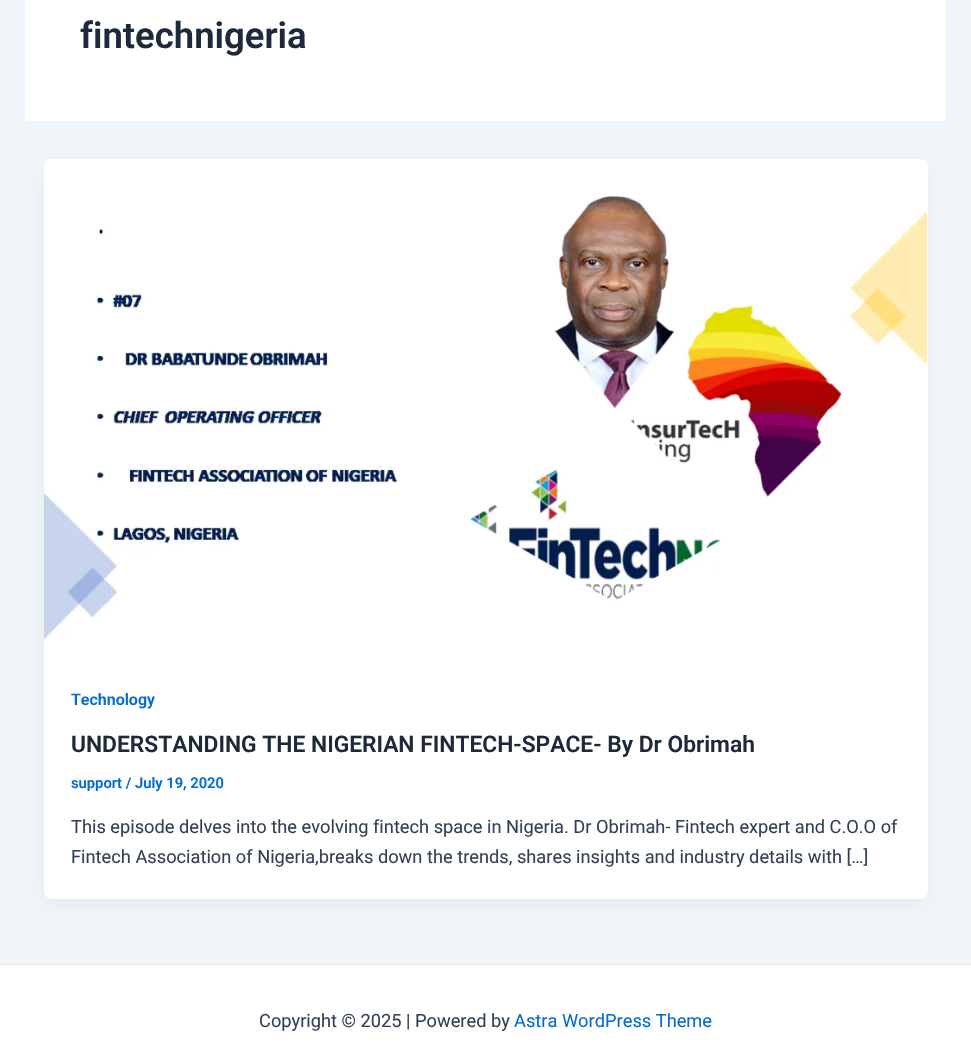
void draw(SkCanvas* canvas) {
    SkPaint paint;
    paint.setAntiAlias(true);
    auto face = [&](const char* family, int weight, float size, bool italic = false) {
        SkFontStyle style(weight, SkFontStyle::kNormal_Width,
            italic ? SkFontStyle::kItalic_Slant : SkFontStyle::kUpright_Slant);
        SkFont result(fontMgr->matchFamilyStyle(family, style), size);
        result.setSubpixel(true);
        return result;
    };
    auto write = [&](const char* s, float x, float y, const SkFont& font, SkColor color) {
        SkPaint ink(SkColor4f::FromColor(color));
        ink.setAntiAlias(true);
        canvas->drawString(s, x, y, font, ink);
    };
    auto block = [&](float x, float y, float w, float h, SkColor color) {
        SkPaint ink(SkColor4f::FromColor(color));
        ink.setAntiAlias(true);
        canvas->drawRect(SkRect::MakeXYWH(x, y, w, h), ink);
    };
    auto card = [&](float x, float y, float w, float h, float radius, SkColor color) {
        SkPaint ink(SkColor4f::FromColor(color));
        ink.setAntiAlias(true);
        canvas->drawRoundRect(SkRect::MakeXYWH(x, y, w, h), radius, radius, ink);
    };
    auto paste = [&](const char* path, float x, float y, float w, float h) {
        auto image = SkImages::DeferredFromEncodedData(SkData::MakeFromFileName(path));
        canvas->drawImageRect(image, SkRect::MakeXYWH(x, y, w, h), SkSamplingOptions());
    };
    canvas->clear(SkColorSetRGB(240, 245, 250));
    block(25, 0, 921, 121, SK_ColorWHITE);
    auto kFont1 = face("Roboto", 600, 36.5f);
    write("fintechnigeria", 80, 48, kFont1, SkColorSetRGB(30, 41, 59));
    paint.setColor(SkColorSetARGB(13, 16, 24, 40));
    paint.setMaskFilter(SkMaskFilter::MakeBlur(kNormal_SkBlurStyle, 9.5f));
    canvas->drawRoundRect(SkRect::MakeXYWH(46, 169, 879, 735), 5, 5, paint);
    paint.setMaskFilter(nullptr);
    card(44, 159, 884, 740, 8, SK_ColorWHITE);
    paste("pic1.png", 44, 159, 884, 481);
    auto kFont2 = face("Roboto", 600, 16);
    write("Technology", 71, 705, kFont2, SkColorSetRGB(4, 107, 210));
    auto kFont3 = face("Roboto", 600, 22.8f);
    write("UNDERSTANDING THE NIGERIAN FINTECH-SPACE- By Dr Obrimah", 71, 752, kFont3, SkColorSetRGB(30, 41, 59));
    auto kFont4 = face("Roboto", 600, 14.75f);
    write("support / July 19, 2020", 71, 788, kFont4, SkColorSetRGB(4, 107, 210));
    auto kFont5 = face("Roboto", 400, 18.25f);
    write("This episode delves into the evolving fintech space in Nigeria. Dr Obrimah- Fintech expert and C.O.O of", 71, 833, kFont5, SkColorSetRGB(51, 65, 85));
    write("Fintech Association of Nigeria,breaks down the trends, shares insights and industry details with […]", 71, 863, kFont5, SkColorSetRGB(51, 65, 85));
    block(0, 965, 971, 90, SK_ColorWHITE);
    block(0, 964, 971, 1, SkColorSetRGB(234, 234, 234));
    write("Copyright © 2025 | Powered by", 259, 1027, kFont5, SkColorSetRGB(51, 65, 85));
    write("Astra WordPress Theme", 514, 1027, kFont5, SkColorSetRGB(4, 107, 210));
}
